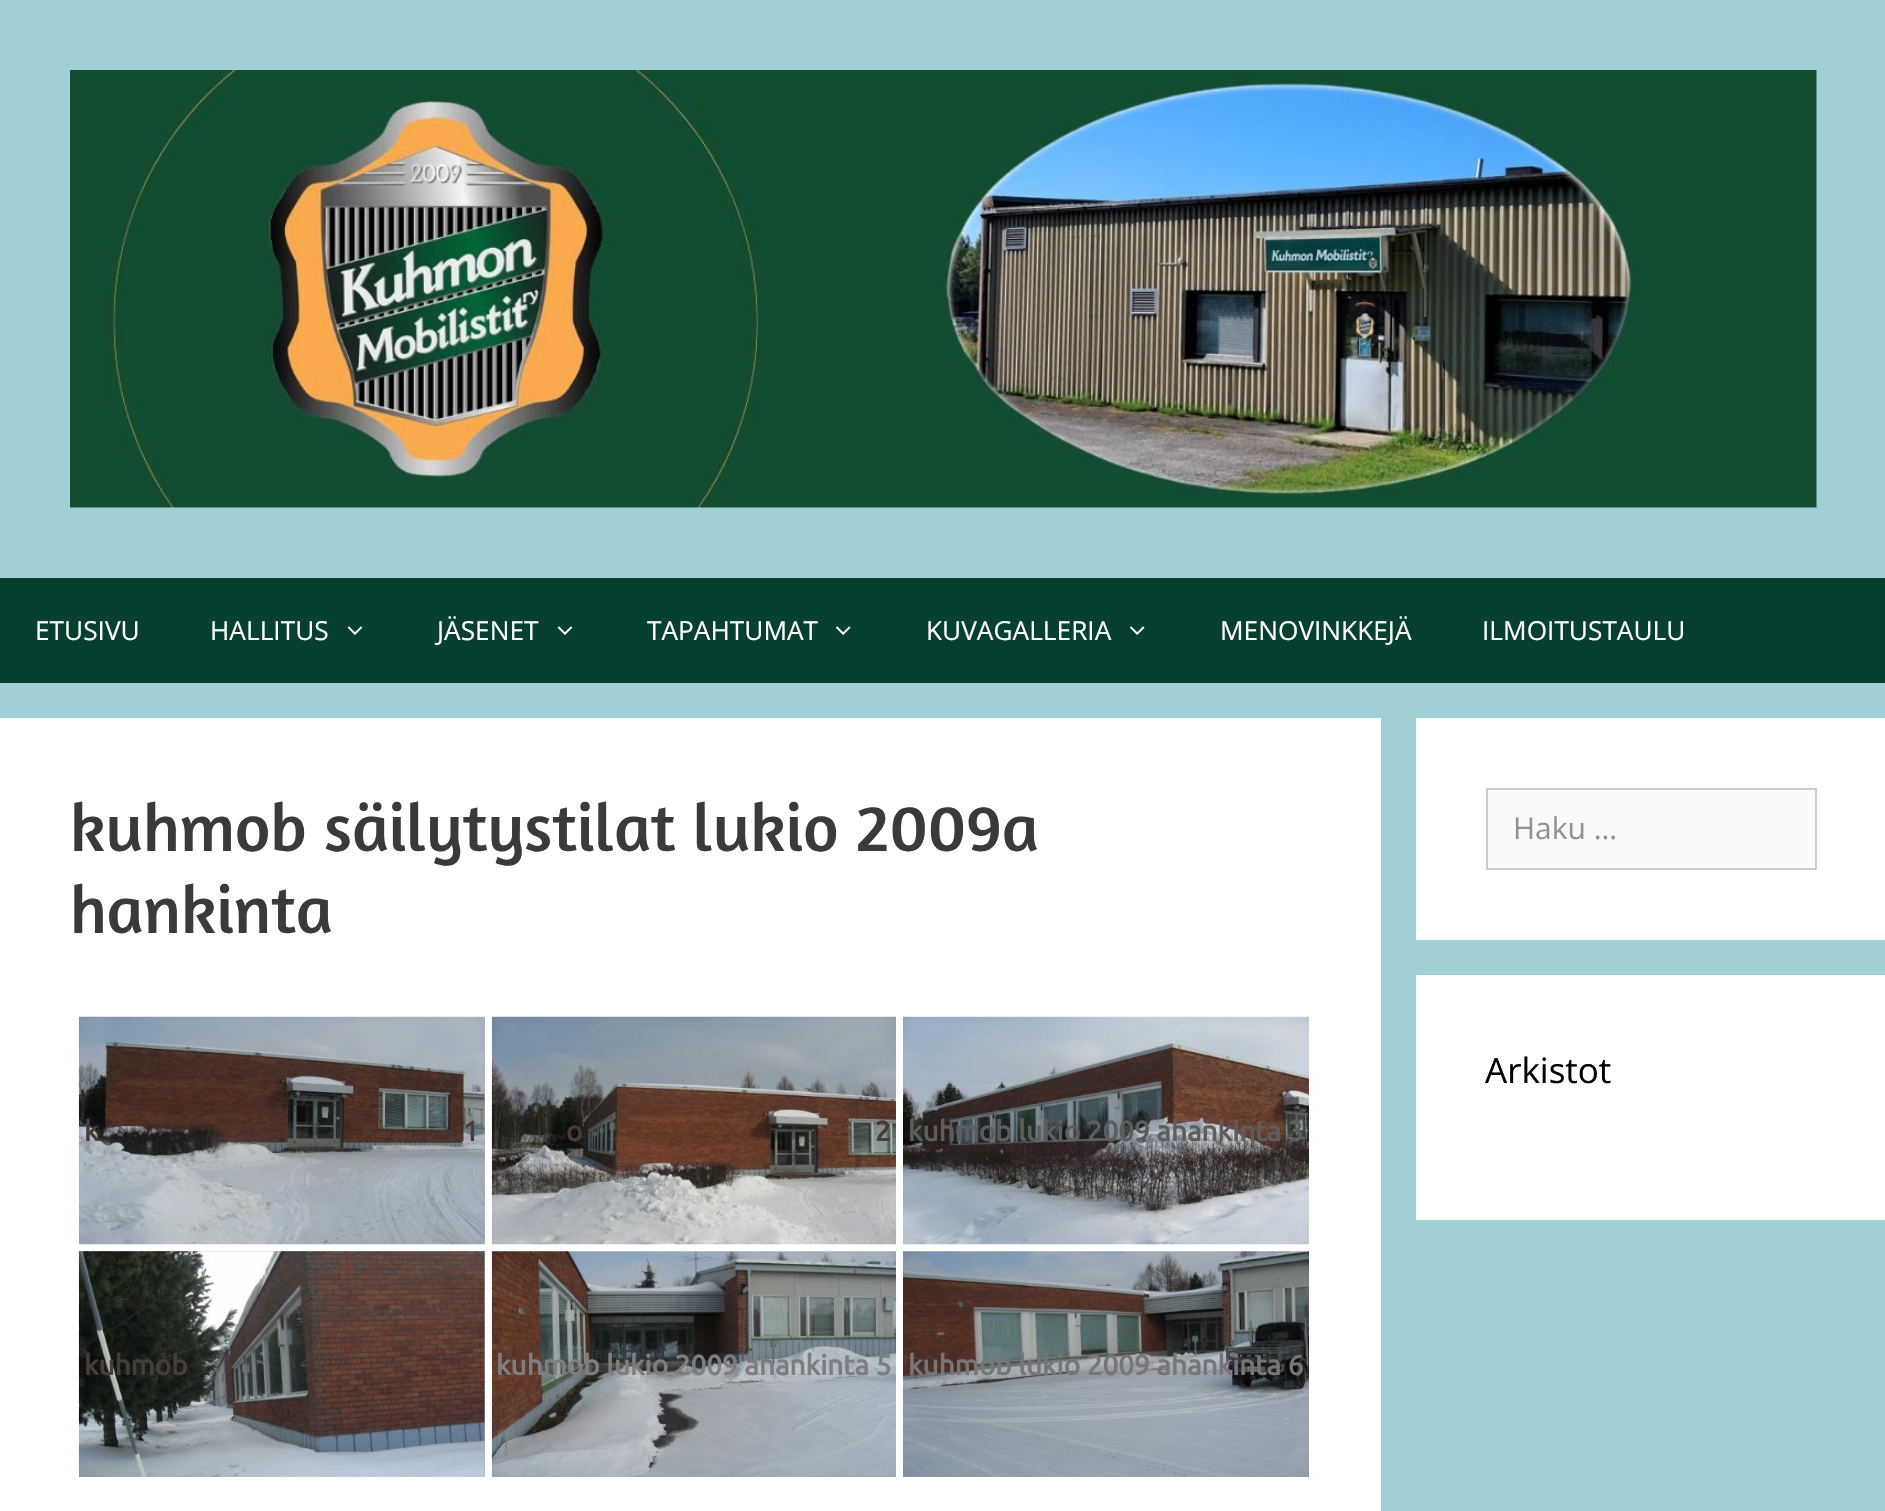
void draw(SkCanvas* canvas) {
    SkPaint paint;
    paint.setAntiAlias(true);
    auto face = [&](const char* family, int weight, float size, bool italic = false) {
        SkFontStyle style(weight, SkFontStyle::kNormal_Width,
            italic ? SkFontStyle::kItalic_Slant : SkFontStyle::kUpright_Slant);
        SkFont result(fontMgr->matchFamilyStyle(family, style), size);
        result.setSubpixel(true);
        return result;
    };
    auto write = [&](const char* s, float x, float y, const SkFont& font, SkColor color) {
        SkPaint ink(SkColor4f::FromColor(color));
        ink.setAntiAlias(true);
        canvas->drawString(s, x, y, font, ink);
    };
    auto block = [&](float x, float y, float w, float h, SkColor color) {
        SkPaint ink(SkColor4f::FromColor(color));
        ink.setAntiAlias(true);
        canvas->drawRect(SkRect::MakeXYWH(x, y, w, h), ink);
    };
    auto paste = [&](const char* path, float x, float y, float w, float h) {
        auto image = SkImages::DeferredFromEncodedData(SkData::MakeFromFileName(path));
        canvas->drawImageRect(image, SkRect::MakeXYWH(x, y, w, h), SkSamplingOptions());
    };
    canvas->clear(SkColorSetRGB(160, 208, 214));
    paste("pic1.png", 70, 70, 1747, 438);
    block(0, 578, 1885, 105, SkColorSetRGB(7, 64, 48));
    auto kFont1 = face("Open Sans", 400, 26.25f);
    write("ETUSIVU", 35, 640, kFont1, SK_ColorWHITE);
    write("HALLITUS", 210, 640, kFont1, SK_ColorWHITE);
    paste("pic2.png", 347, 626, 16, 9);
    write("JÄSENET", 437, 640, kFont1, SK_ColorWHITE);
    paste("pic2.png", 557, 626, 16, 9);
    write("TAPAHTUMAT", 647, 640, kFont1, SK_ColorWHITE);
    paste("pic3.png", 836, 626, 15, 9);
    write("KUVAGALLERIA", 926, 640, kFont1, SK_ColorWHITE);
    paste("pic3.png", 1130, 626, 15, 9);
    write("MENOVINKKEJÄ", 1220, 640, kFont1, SK_ColorWHITE);
    write("ILMOITUSTAULU", 1482, 640, kFont1, SK_ColorWHITE);
    block(0, 718, 1381, 793, SK_ColorWHITE);
    auto kFont2 = face("Amaranth", 400, 68.25f);
    write("kuhmob säilytystilat lukio 2009a", 70, 851, kFont2, SkColorSetRGB(58, 58, 58));
    write("hankinta", 70, 933, kFont2, SkColorSetRGB(58, 58, 58));
    block(484, 1017, 1, 227, SkColorSetRGB(179, 179, 179));
    paste("pic4.png", 78, 1016, 407, 229);
    auto kFont3 = face("Ubuntu", 700, 28);
    write("k", 84, 1141, kFont3, SkColorSetRGB(72, 61, 57));
    write("1", 463, 1141, kFont3, SkColorSetRGB(72, 61, 57));
    paste("pic5.png", 491, 1016, 405, 229);
    write("o", 566, 1141, kFont3, SkColorSetRGB(76, 57, 48));
    write("2", 875, 1141, kFont3, SkColorSetRGB(76, 57, 48));
    paste("pic6.png", 903, 1016, 406, 229);
    write("kuhmob lukio 2009 ahankinta 3", 908, 1141, kFont3, SkColorSetRGB(93, 93, 94));
    block(79, 1251, 406, 226, SkColorSetRGB(179, 179, 179));
    paste("pic7.png", 78, 1251, 407, 226);
    write("kuhmob", 84, 1375, kFont3, SkColorSetRGB(72, 61, 57));
    paste("pic8.png", 491, 1251, 405, 226);
    write("kuhmob lukio 2009 ahankinta 5", 496, 1375, kFont3, SkColorSetRGB(126, 126, 128));
    paste("pic9.png", 903, 1251, 406, 226);
    write("kuhmob lukio 2009 ahankinta 6", 908, 1375, kFont3, SkColorSetRGB(118, 118, 121));
    block(1416, 718, 469, 222, SK_ColorWHITE);
    paint.setColor(SkColorSetRGB(250, 250, 250));
    canvas->drawRect(SkRect::MakeXYWH(1487, 789, 329, 80), paint);
    paint.setStyle(SkPaint::kStroke_Style);
    paint.setStrokeWidth(2);
    paint.setColor(SkColorSetRGB(204, 204, 204));
    canvas->drawRect(SkRect::MakeXYWH(1487, 789, 329, 80), paint);
    auto kFont4 = face("Open Sans", 400, 30);
    write("Haku …", 1513, 839, kFont4, SkColorSetRGB(146, 146, 146));
    block(1416, 975, 469, 245, SK_ColorWHITE);
    auto kFont5 = face("Open Sans", 400, 35);
    write("Arkistot", 1485, 1083, kFont5, SK_ColorBLACK);
}
